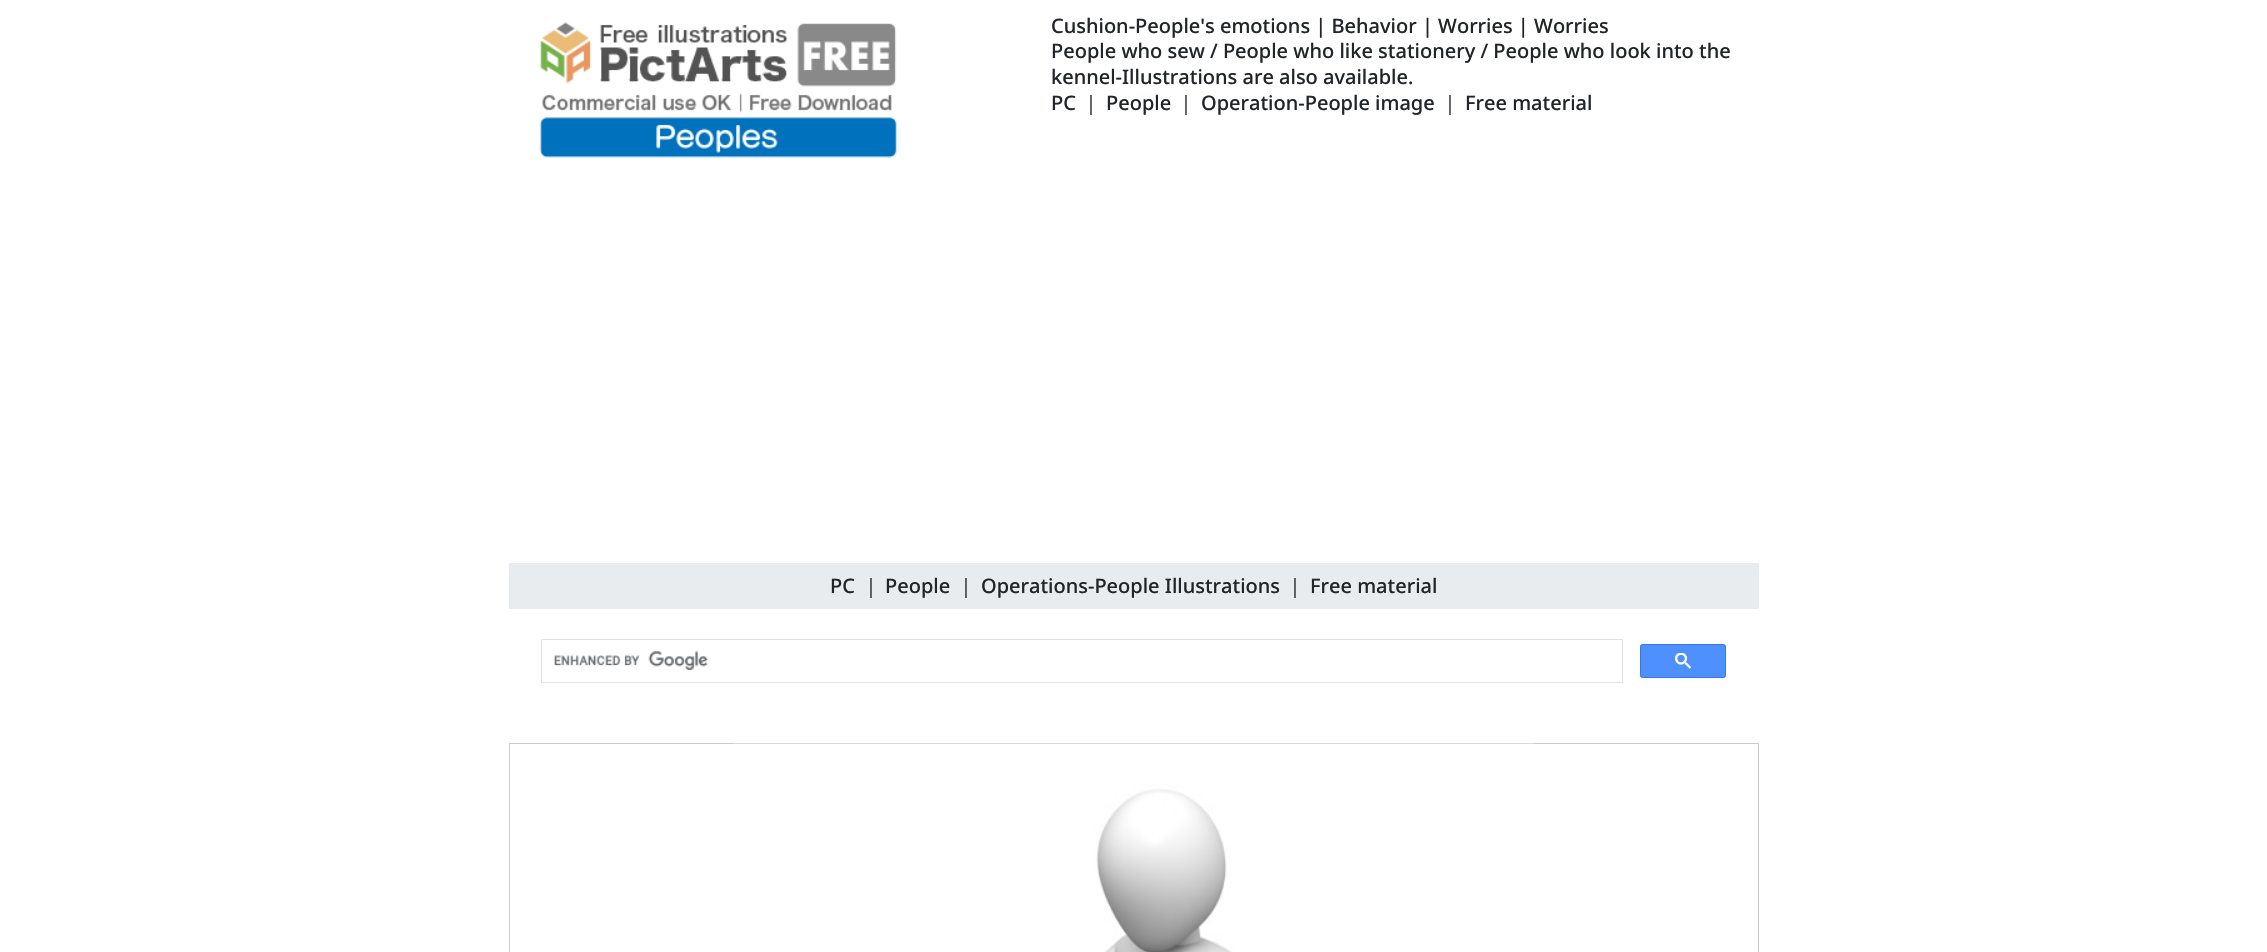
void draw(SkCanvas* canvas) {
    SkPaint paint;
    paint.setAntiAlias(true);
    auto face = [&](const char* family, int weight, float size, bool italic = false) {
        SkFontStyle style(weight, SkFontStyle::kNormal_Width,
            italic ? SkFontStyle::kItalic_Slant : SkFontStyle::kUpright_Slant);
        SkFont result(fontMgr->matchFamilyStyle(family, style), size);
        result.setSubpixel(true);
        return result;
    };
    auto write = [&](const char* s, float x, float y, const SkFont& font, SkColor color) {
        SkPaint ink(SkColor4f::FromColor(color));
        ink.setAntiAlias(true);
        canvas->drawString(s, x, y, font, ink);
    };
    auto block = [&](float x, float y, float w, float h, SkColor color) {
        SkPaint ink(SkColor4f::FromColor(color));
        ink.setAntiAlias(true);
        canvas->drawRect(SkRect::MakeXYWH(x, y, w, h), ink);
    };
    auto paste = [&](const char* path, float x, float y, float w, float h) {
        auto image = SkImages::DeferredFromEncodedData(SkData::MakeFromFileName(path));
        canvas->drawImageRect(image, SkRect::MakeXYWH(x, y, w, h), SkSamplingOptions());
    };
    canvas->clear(SK_ColorWHITE);
    paste("pic1.png", 539, 22, 358, 136);
    auto kFont1 = face("Noto Sans", 500, 20);
    write("Cushion-People's emotions | Behavior | Worries | Worries", 1051, 33, kFont1, SkColorSetRGB(33, 37, 41));
    write("People who sew / People who like stationery / People who look into the", 1051, 58, kFont1, SkColorSetRGB(33, 37, 41));
    write("kennel-Illustrations are also available.", 1051, 84, kFont1, SkColorSetRGB(33, 37, 41));
    write("PC", 1051, 110, kFont1, SkColorSetRGB(33, 37, 41));
    auto kFont2 = face("WenQuanYi Zen Hei", 500, 20);
    write("｜", 1081, 110, kFont2, SkColorSetRGB(33, 37, 41));
    write("People", 1106, 110, kFont1, SkColorSetRGB(33, 37, 41));
    write("｜", 1176, 110, kFont2, SkColorSetRGB(33, 37, 41));
    write("Operation-People image", 1201, 110, kFont1, SkColorSetRGB(33, 37, 41));
    write("｜", 1440, 110, kFont2, SkColorSetRGB(33, 37, 41));
    write("Free material", 1465, 110, kFont1, SkColorSetRGB(33, 37, 41));
    block(509, 563, 1250, 46, SkColorSetRGB(233, 236, 239));
    write("PC", 830, 593, kFont1, SkColorSetRGB(33, 37, 41));
    write("｜", 861, 593, kFont2, SkColorSetRGB(33, 37, 41));
    write("People", 885, 593, kFont1, SkColorSetRGB(33, 37, 41));
    write("｜", 956, 593, kFont2, SkColorSetRGB(33, 37, 41));
    write("Operations-People Illustrations", 981, 593, kFont1, SkColorSetRGB(33, 37, 41));
    write("｜", 1285, 593, kFont2, SkColorSetRGB(33, 37, 41));
    write("Free material", 1310, 593, kFont1, SkColorSetRGB(33, 37, 41));
    paint.setStyle(SkPaint::kStroke_Style);
    paint.setStrokeWidth(1);
    paint.setColor(SkColorSetRGB(223, 225, 229));
    canvas->drawRect(SkRect::MakeXYWH(541.5f, 639.5f, 1081, 43), paint);
    paste("pic2.png", 553, 651, 155, 19);
    paint.setStyle(SkPaint::kFill_Style);
    paint.setColor(SkColorSetRGB(77, 144, 254));
    canvas->drawRoundRect(SkRect::MakeXYWH(1640.5f, 644.5f, 85, 33), 2, 2, paint);
    paint.setStyle(SkPaint::kStroke_Style);
    paint.setColor(SkColorSetRGB(48, 121, 237));
    canvas->drawRoundRect(SkRect::MakeXYWH(1640.5f, 644.5f, 85, 33), 2, 2, paint);
    paste("pic3.png", 1675, 653, 16, 16);
    paint.setColor(SkColorSetRGB(204, 204, 204));
    canvas->drawRect(SkRect::MakeXYWH(509.5f, 743.5f, 1249, 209), paint);
    paste("pic4.png", 734, 743, 800, 209);
}
